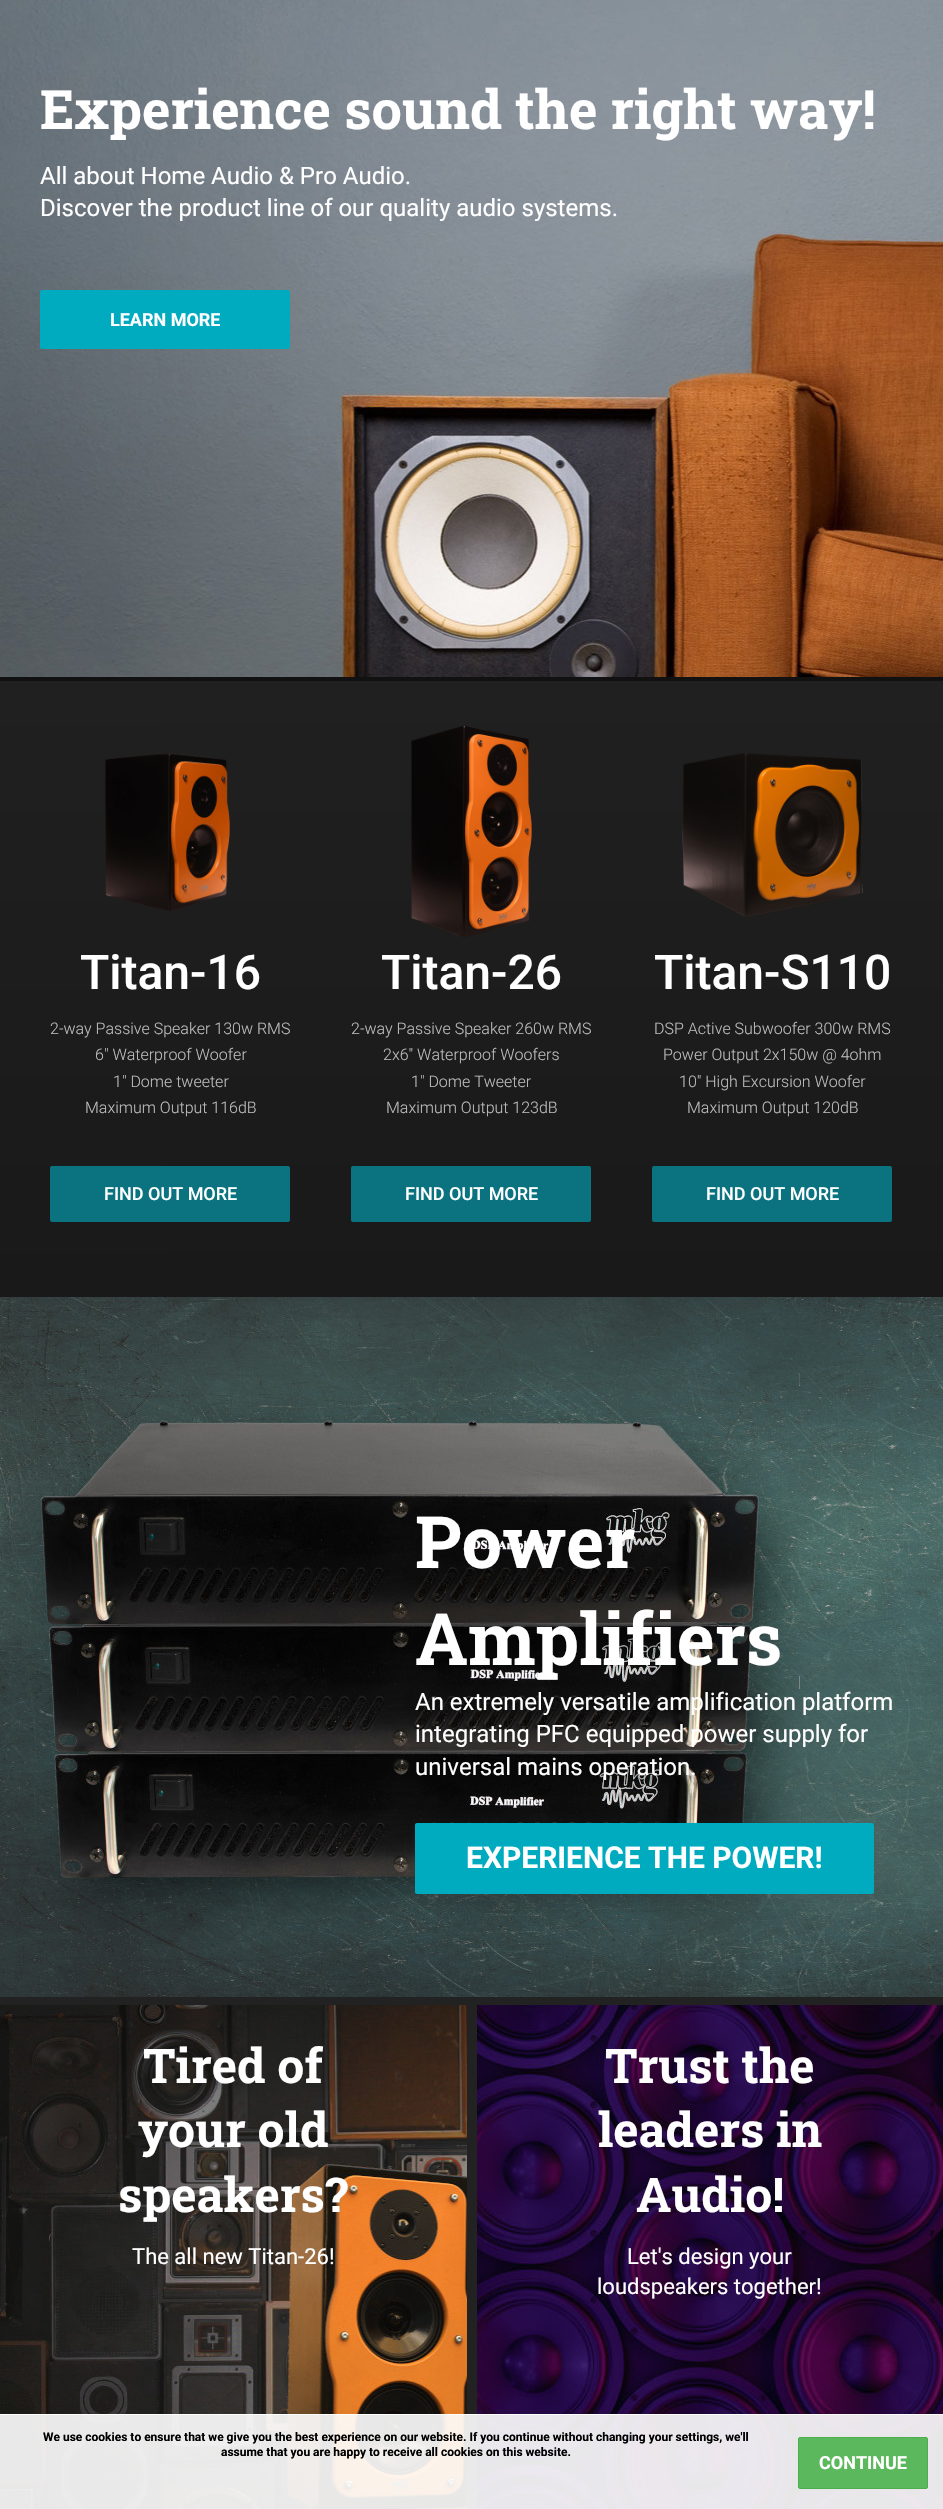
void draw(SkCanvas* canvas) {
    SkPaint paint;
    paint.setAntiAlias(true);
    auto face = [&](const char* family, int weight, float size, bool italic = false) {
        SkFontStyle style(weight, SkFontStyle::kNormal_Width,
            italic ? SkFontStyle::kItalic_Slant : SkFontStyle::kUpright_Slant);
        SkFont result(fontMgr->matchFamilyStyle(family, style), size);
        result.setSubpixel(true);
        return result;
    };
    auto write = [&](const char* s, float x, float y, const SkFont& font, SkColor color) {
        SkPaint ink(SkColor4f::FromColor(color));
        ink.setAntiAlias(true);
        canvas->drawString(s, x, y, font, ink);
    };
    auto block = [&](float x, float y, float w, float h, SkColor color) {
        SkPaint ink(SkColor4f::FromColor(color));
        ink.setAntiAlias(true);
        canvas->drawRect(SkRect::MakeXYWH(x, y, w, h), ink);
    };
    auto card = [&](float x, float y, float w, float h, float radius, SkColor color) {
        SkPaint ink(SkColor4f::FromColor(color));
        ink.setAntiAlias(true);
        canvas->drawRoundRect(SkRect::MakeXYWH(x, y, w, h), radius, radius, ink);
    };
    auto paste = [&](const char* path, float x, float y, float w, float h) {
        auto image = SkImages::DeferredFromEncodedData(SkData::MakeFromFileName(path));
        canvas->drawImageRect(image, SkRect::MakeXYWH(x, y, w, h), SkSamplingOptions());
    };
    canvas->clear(SK_ColorWHITE);
    paste("pic1.png", 0, 0, 943, 677);
    auto kFont1 = face("Roboto Slab", 700, 54);
    write("Experience sound the right way!", 40, 129, kFont1, SK_ColorWHITE);
    auto kFont2 = face("Roboto", 400, 24);
    write("All about Home Audio & Pro Audio.", 40, 184, kFont2, SK_ColorWHITE);
    write("Discover the product line of our quality audio systems.", 40, 216, kFont2, SK_ColorWHITE);
    card(40, 290, 250, 59, 2, SkColorSetRGB(0, 171, 191));
    auto kFont3 = face("Roboto", 700, 18);
    write("LEARN MORE", 110, 326, kFont3, SK_ColorWHITE);
    {
        const SkColor colors[] = {SkColorSetRGB(32, 32, 32), SkColorSetRGB(25, 25, 25)};
        const float stops[] = {0, 1};
        const SkPoint ends[] = {{471, 681}, {472, 1297}};
        paint.setShader(SkGradientShader::MakeLinear(ends, colors, stops, 2, SkTileMode::kClamp));
        paint.setAlpha(255);
    }
    canvas->drawRect(SkRect::MakeXYWH(0, 681, 943, 616), paint);
    block(0, 677, 943, 4, SkColorSetRGB(17, 17, 17));
    paste("pic2.png", 105, 753, 125, 158);
    auto kFont4 = face("Roboto", 500, 48);
    write("Titan-16", 80, 989, kFont4, SK_ColorWHITE);
    auto kFont5 = face("Roboto", 300, 16);
    write("2-way Passive Speaker 130w RMS", 50, 1034, kFont5, SkColorSetRGB(188, 188, 188));
    write("6\" Waterproof Woofer", 95, 1060, kFont5, SkColorSetRGB(188, 188, 188));
    write("1\" Dome tweeter", 113, 1087, kFont5, SkColorSetRGB(188, 188, 188));
    write("Maximum Output 116dB", 85, 1113, kFont5, SkColorSetRGB(188, 188, 188));
    card(50, 1166, 240, 56, 2, SkColorSetRGB(10, 115, 127));
    auto kFont6 = face("Roboto", 500, 18);
    write("FIND OUT MORE", 104, 1200, kFont6, SK_ColorWHITE);
    paste("pic3.png", 411, 725, 121, 213);
    write("Titan-26", 381, 989, kFont4, SK_ColorWHITE);
    write("2-way Passive Speaker 260w RMS", 351, 1034, kFont5, SkColorSetRGB(188, 188, 188));
    write("2x6\" Waterproof Woofers", 383, 1060, kFont5, SkColorSetRGB(188, 188, 188));
    write("1\" Dome Tweeter", 411, 1087, kFont5, SkColorSetRGB(188, 188, 188));
    write("Maximum Output 123dB", 386, 1113, kFont5, SkColorSetRGB(188, 188, 188));
    card(351, 1166, 240, 56, 2, SkColorSetRGB(10, 115, 127));
    write("FIND OUT MORE", 405, 1200, kFont6, SK_ColorWHITE);
    paste("pic4.png", 682, 753, 181, 164);
    write("Titan-S110", 654, 989, kFont4, SK_ColorWHITE);
    write("DSP Active Subwoofer 300w RMS", 654, 1034, kFont5, SkColorSetRGB(188, 188, 188));
    write("Power Output 2x150w @ 4ohm", 663, 1060, kFont5, SkColorSetRGB(188, 188, 188));
    write("10\" High Excursion Woofer", 679, 1087, kFont5, SkColorSetRGB(188, 188, 188));
    write("Maximum Output 120dB", 687, 1113, kFont5, SkColorSetRGB(188, 188, 188));
    card(652, 1166, 240, 56, 2, SkColorSetRGB(10, 115, 127));
    write("FIND OUT MORE", 706, 1200, kFont6, SK_ColorWHITE);
    paste("pic5.png", 0, 1297, 943, 700);
    auto kFont7 = face("Roboto Slab", 700, 72);
    write("Power", 415, 1568, kFont7, SK_ColorWHITE);
    write("Amplifiers", 415, 1665, kFont7, SK_ColorWHITE);
    write("An extremely versatile amplification platform", 415, 1710, kFont2, SK_ColorWHITE);
    write("integrating PFC equipped power supply for", 415, 1742, kFont2, SK_ColorWHITE);
    write("universal mains operation.", 415, 1775, kFont2, SK_ColorWHITE);
    paint.setShader(nullptr);
    paint.setColor(SkColorSetARGB(28, 75, 75, 75));
    paint.setMaskFilter(SkMaskFilter::MakeBlur(kNormal_SkBlurStyle, 3.5f));
    canvas->drawRoundRect(SkRect::MakeXYWH(413, 1827, 460, 73), 3, 3, paint);
    paint.setMaskFilter(nullptr);
    card(415, 1823, 459, 71, 2, SkColorSetRGB(0, 171, 191));
    auto kFont8 = face("Roboto", 700, 30);
    write("EXPERIENCE THE POWER!", 466, 1868, kFont8, SK_ColorWHITE);
    block(0, 1997, 943, 512, SkColorSetRGB(34, 34, 34));
    paste("pic6.png", 0, 2005, 467, 504);
    auto kFont9 = face("Roboto Slab", 700, 48);
    write("Tired of", 143, 2083, kFont9, SK_ColorWHITE);
    write("your old", 138, 2147, kFont9, SK_ColorWHITE);
    write("speakers?", 118, 2212, kFont9, SK_ColorWHITE);
    auto kFont10 = face("Roboto", 400, 22);
    write("The all new Titan-26!", 132, 2264, kFont10, SK_ColorWHITE);
    paste("pic7.png", 477, 2005, 466, 504);
    write("Trust the", 605, 2083, kFont9, SK_ColorWHITE);
    write("leaders in", 598, 2147, kFont9, SK_ColorWHITE);
    write("Audio!", 636, 2212, kFont9, SK_ColorWHITE);
    write("Let's design your", 627, 2264, kFont10, SK_ColorWHITE);
    write("loudspeakers together!", 597, 2294, kFont10, SK_ColorWHITE);
    block(0, 2415, 943, 94, SkColorSetARGB(230, 255, 255, 255));
    block(0, 2414, 943, 1, SK_ColorWHITE);
    auto kFont11 = face("Roboto", 700, 12);
    write("We use cookies to ensure that we give you the best experience on our website. If you continue without changing your settings, we'll", 43, 2441, kFont11, SK_ColorBLACK);
    write("assume that you are happy to receive all cookies on this website.", 221, 2456, kFont11, SK_ColorBLACK);
    paint.setColor(SkColorSetRGB(92, 184, 92));
    canvas->drawRoundRect(SkRect::MakeXYWH(798.5f, 2437.5f, 129, 51), 1.5f, 1.5f, paint);
    paint.setStyle(SkPaint::kStroke_Style);
    paint.setStrokeWidth(1);
    paint.setColor(SkColorSetRGB(76, 174, 76));
    canvas->drawRoundRect(SkRect::MakeXYWH(798.5f, 2437.5f, 129, 51), 1.5f, 1.5f, paint);
    write("CONTINUE", 819, 2469, kFont3, SK_ColorWHITE);
}
